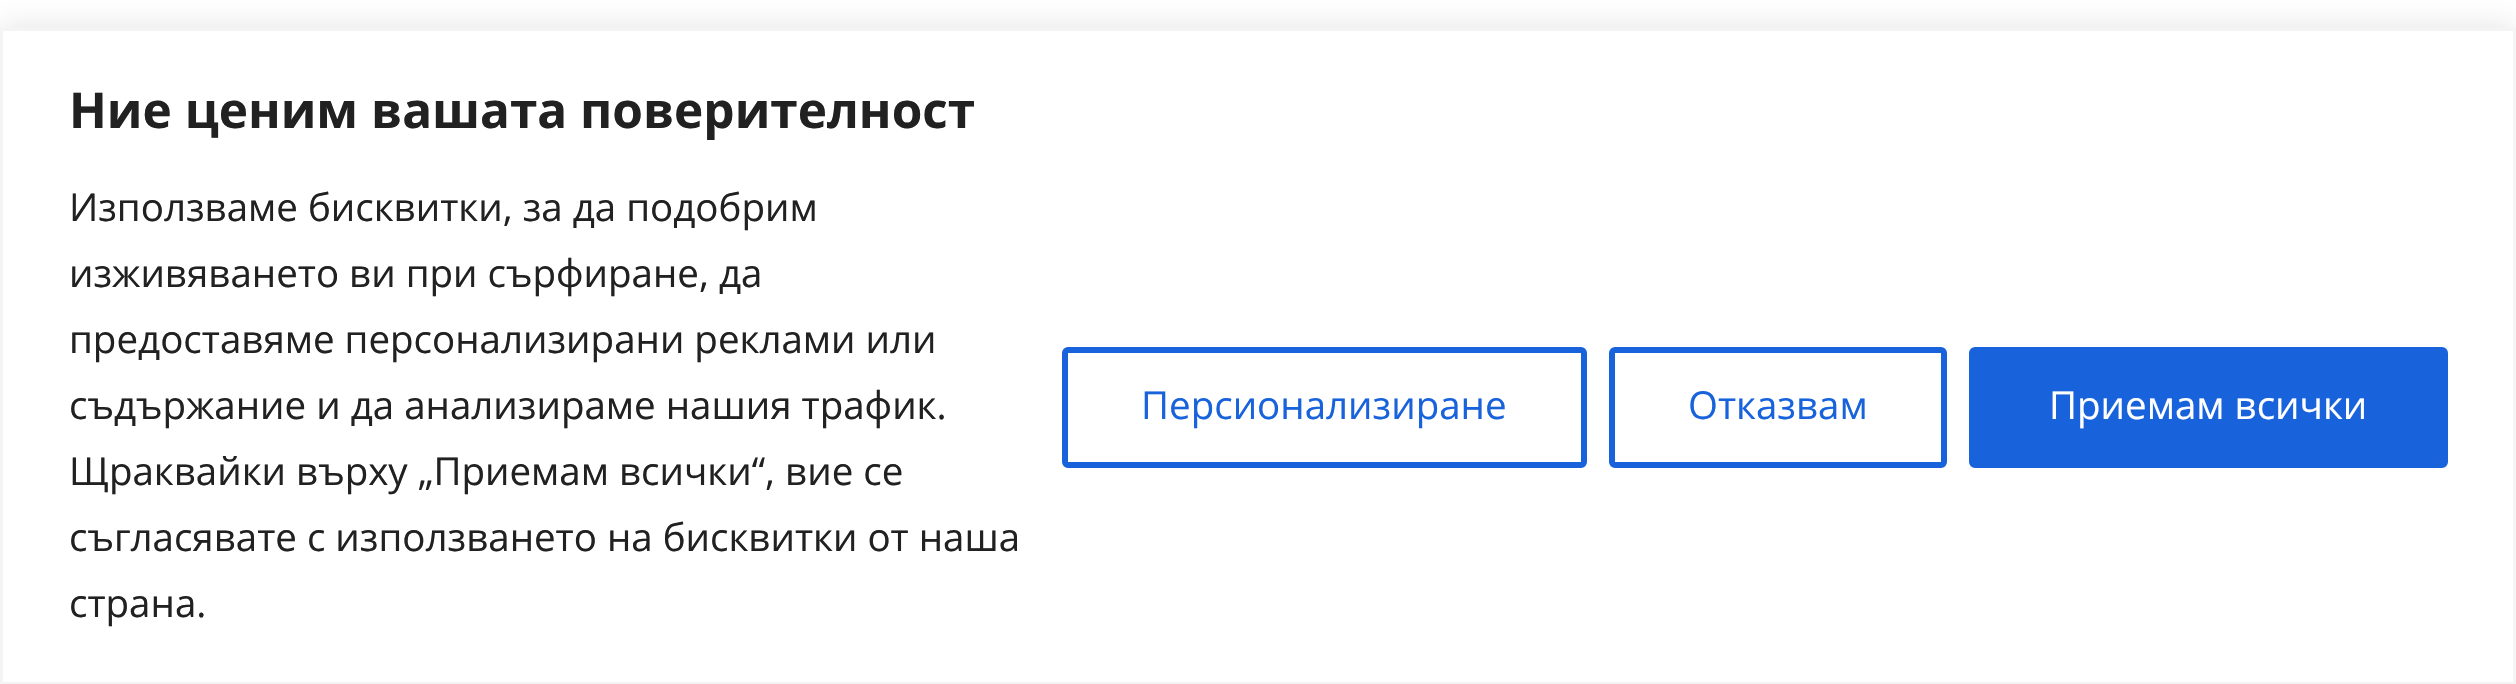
void draw(SkCanvas* canvas) {
    SkPaint paint;
    paint.setAntiAlias(true);
    auto face = [&](const char* family, int weight, float size, bool italic = false) {
        SkFontStyle style(weight, SkFontStyle::kNormal_Width,
            italic ? SkFontStyle::kItalic_Slant : SkFontStyle::kUpright_Slant);
        SkFont result(fontMgr->matchFamilyStyle(family, style), size);
        result.setSubpixel(true);
        return result;
    };
    auto write = [&](const char* s, float x, float y, const SkFont& font, SkColor color) {
        SkPaint ink(SkColor4f::FromColor(color));
        ink.setAntiAlias(true);
        canvas->drawString(s, x, y, font, ink);
    };
    canvas->clear(SK_ColorWHITE);
    paint.setColor(SkColorSetARGB(77, 172, 171, 171));
    paint.setMaskFilter(SkMaskFilter::MakeBlur(kNormal_SkBlurStyle, 14));
    canvas->drawRect(SkRect::MakeXYWH(0, 25, 2516, 657), paint);
    paint.setMaskFilter(nullptr);
    paint.setColor(SK_ColorWHITE);
    canvas->drawRect(SkRect::MakeXYWH(1.5f, 29.5f, 2513, 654), paint);
    paint.setStyle(SkPaint::kStroke_Style);
    paint.setStrokeWidth(3);
    paint.setColor(SkColorSetRGB(244, 244, 244));
    canvas->drawRect(SkRect::MakeXYWH(1.5f, 29.5f, 2513, 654), paint);
    auto kFont1 = face("Open Sans", 700, 49.5f);
    write("Ние ценим вашата поверителност", 69, 128, kFont1, SkColorSetRGB(33, 33, 33));
    auto kFont2 = face("Open Sans", 400, 38.5f);
    write("Използваме бисквитки, за да подобрим", 69, 221, kFont2, SkColorSetRGB(33, 33, 33));
    write("изживяването ви при сърфиране, да", 69, 287, kFont2, SkColorSetRGB(33, 33, 33));
    write("предоставяме персонализирани реклами или", 69, 353, kFont2, SkColorSetRGB(33, 33, 33));
    write("съдържание и да анализираме нашия трафик.", 69, 419, kFont2, SkColorSetRGB(33, 33, 33));
    write("Щраквайки върху „Приемам всички“, вие се", 69, 485, kFont2, SkColorSetRGB(33, 33, 33));
    write("съгласявате с използването на бисквитки от наша", 69, 551, kFont2, SkColorSetRGB(33, 33, 33));
    write("страна.", 69, 617, kFont2, SkColorSetRGB(33, 33, 33));
    paint.setStrokeWidth(6);
    paint.setColor(SkColorSetRGB(24, 99, 220));
    canvas->drawRoundRect(SkRect::MakeXYWH(1065, 350, 519, 115), 3, 3, paint);
    write("Персионализиране", 1141, 419, kFont2, SkColorSetRGB(24, 99, 220));
    canvas->drawRoundRect(SkRect::MakeXYWH(1612, 350, 332, 115), 3, 3, paint);
    write("Отказвам", 1688, 419, kFont2, SkColorSetRGB(24, 99, 220));
    paint.setStyle(SkPaint::kFill_Style);
    canvas->drawRoundRect(SkRect::MakeXYWH(1972, 350, 473, 115), 3, 3, paint);
    paint.setStyle(SkPaint::kStroke_Style);
    canvas->drawRoundRect(SkRect::MakeXYWH(1972, 350, 473, 115), 3, 3, paint);
    write("Приемам всички", 2049, 419, kFont2, SK_ColorWHITE);
}
